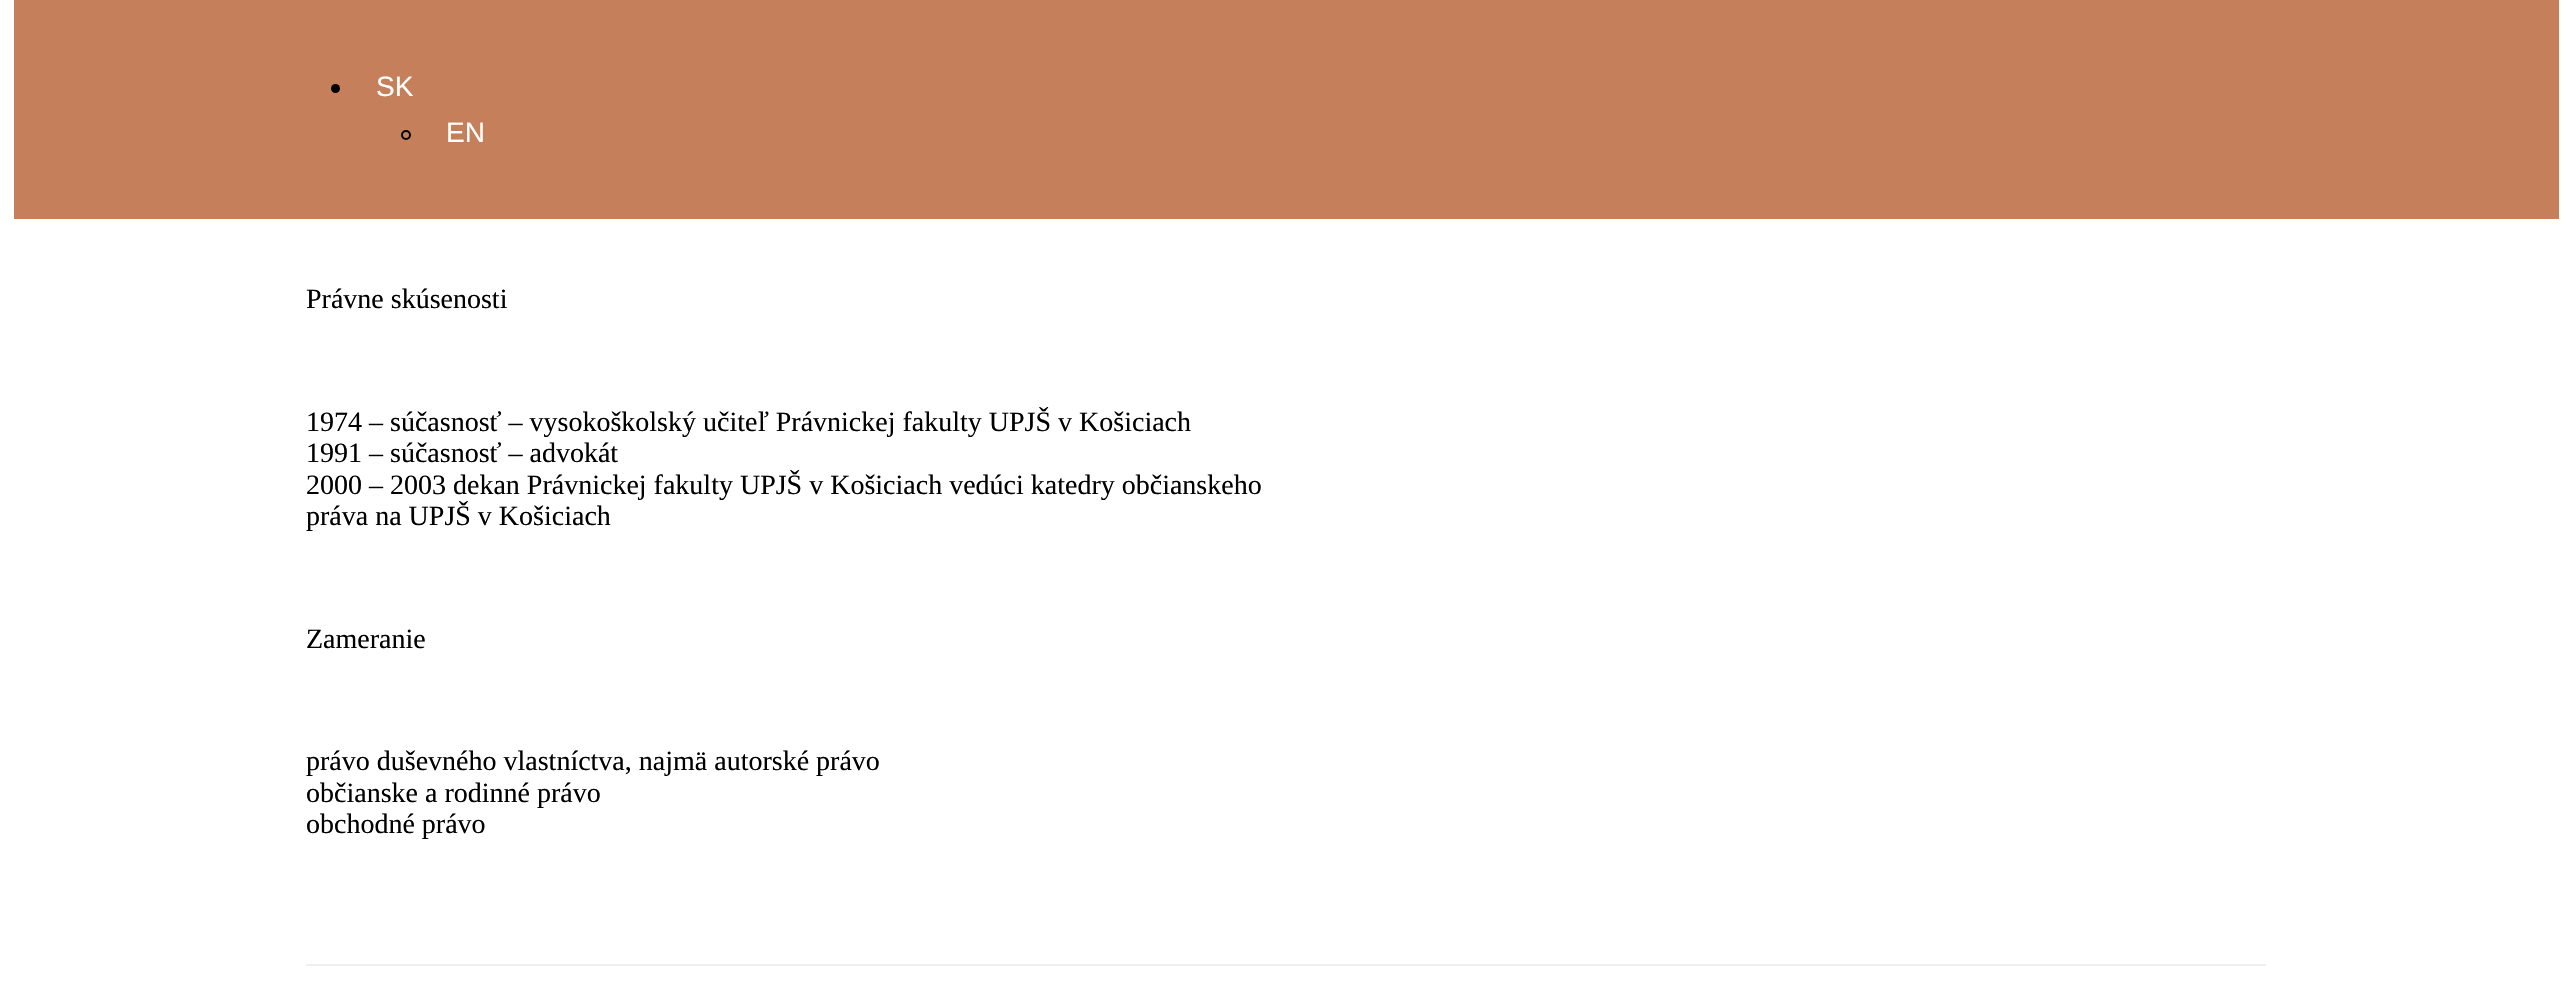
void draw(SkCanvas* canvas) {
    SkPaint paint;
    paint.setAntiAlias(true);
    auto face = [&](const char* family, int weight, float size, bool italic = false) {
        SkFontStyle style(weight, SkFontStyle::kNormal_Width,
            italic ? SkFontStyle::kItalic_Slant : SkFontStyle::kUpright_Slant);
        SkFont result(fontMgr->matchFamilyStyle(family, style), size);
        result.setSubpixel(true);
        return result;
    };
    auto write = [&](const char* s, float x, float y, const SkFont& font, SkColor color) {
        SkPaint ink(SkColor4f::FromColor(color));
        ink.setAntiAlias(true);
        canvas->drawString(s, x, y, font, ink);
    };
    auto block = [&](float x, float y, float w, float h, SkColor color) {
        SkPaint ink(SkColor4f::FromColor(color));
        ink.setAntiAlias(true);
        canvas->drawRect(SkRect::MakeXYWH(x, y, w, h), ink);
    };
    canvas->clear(SK_ColorWHITE);
    block(14, 0, 2545, 219, SkColorSetRGB(197, 127, 91));
    paint.setColor(SK_ColorBLACK);
    canvas->drawCircle(335.5f, 88.5f, 4.5f, paint);
    auto kFont1 = face("Liberation Sans", 400, 28);
    write("SK", 376, 96, kFont1, SK_ColorWHITE);
    paint.setStyle(SkPaint::kStroke_Style);
    paint.setStrokeWidth(2);
    canvas->drawCircle(406, 135, 4, paint);
    write("EN", 446, 142, kFont1, SK_ColorWHITE);
    auto kFont2 = face("Liberation Serif", 400, 28);
    write("Právne skúsenosti", 306, 308, kFont2, SK_ColorBLACK);
    write("1974 – súčasnosť – vysokoškolský učiteľ Právnickej fakulty UPJŠ v Košiciach", 306, 431, kFont2, SK_ColorBLACK);
    write("1991 – súčasnosť – advokát", 306, 462, kFont2, SK_ColorBLACK);
    write("2000 – 2003 dekan Právnickej fakulty UPJŠ v Košiciach vedúci katedry občianskeho", 306, 494, kFont2, SK_ColorBLACK);
    write("práva na UPJŠ v Košiciach", 306, 525, kFont2, SK_ColorBLACK);
    write("Zameranie", 306, 648, kFont2, SK_ColorBLACK);
    write("právo duševného vlastníctva, najmä autorské právo", 306, 770, kFont2, SK_ColorBLACK);
    write("občianske a rodinné právo", 306, 802, kFont2, SK_ColorBLACK);
    write("obchodné právo", 306, 833, kFont2, SK_ColorBLACK);
    block(306, 964, 1960, 2, SkColorSetRGB(239, 239, 239));
}
